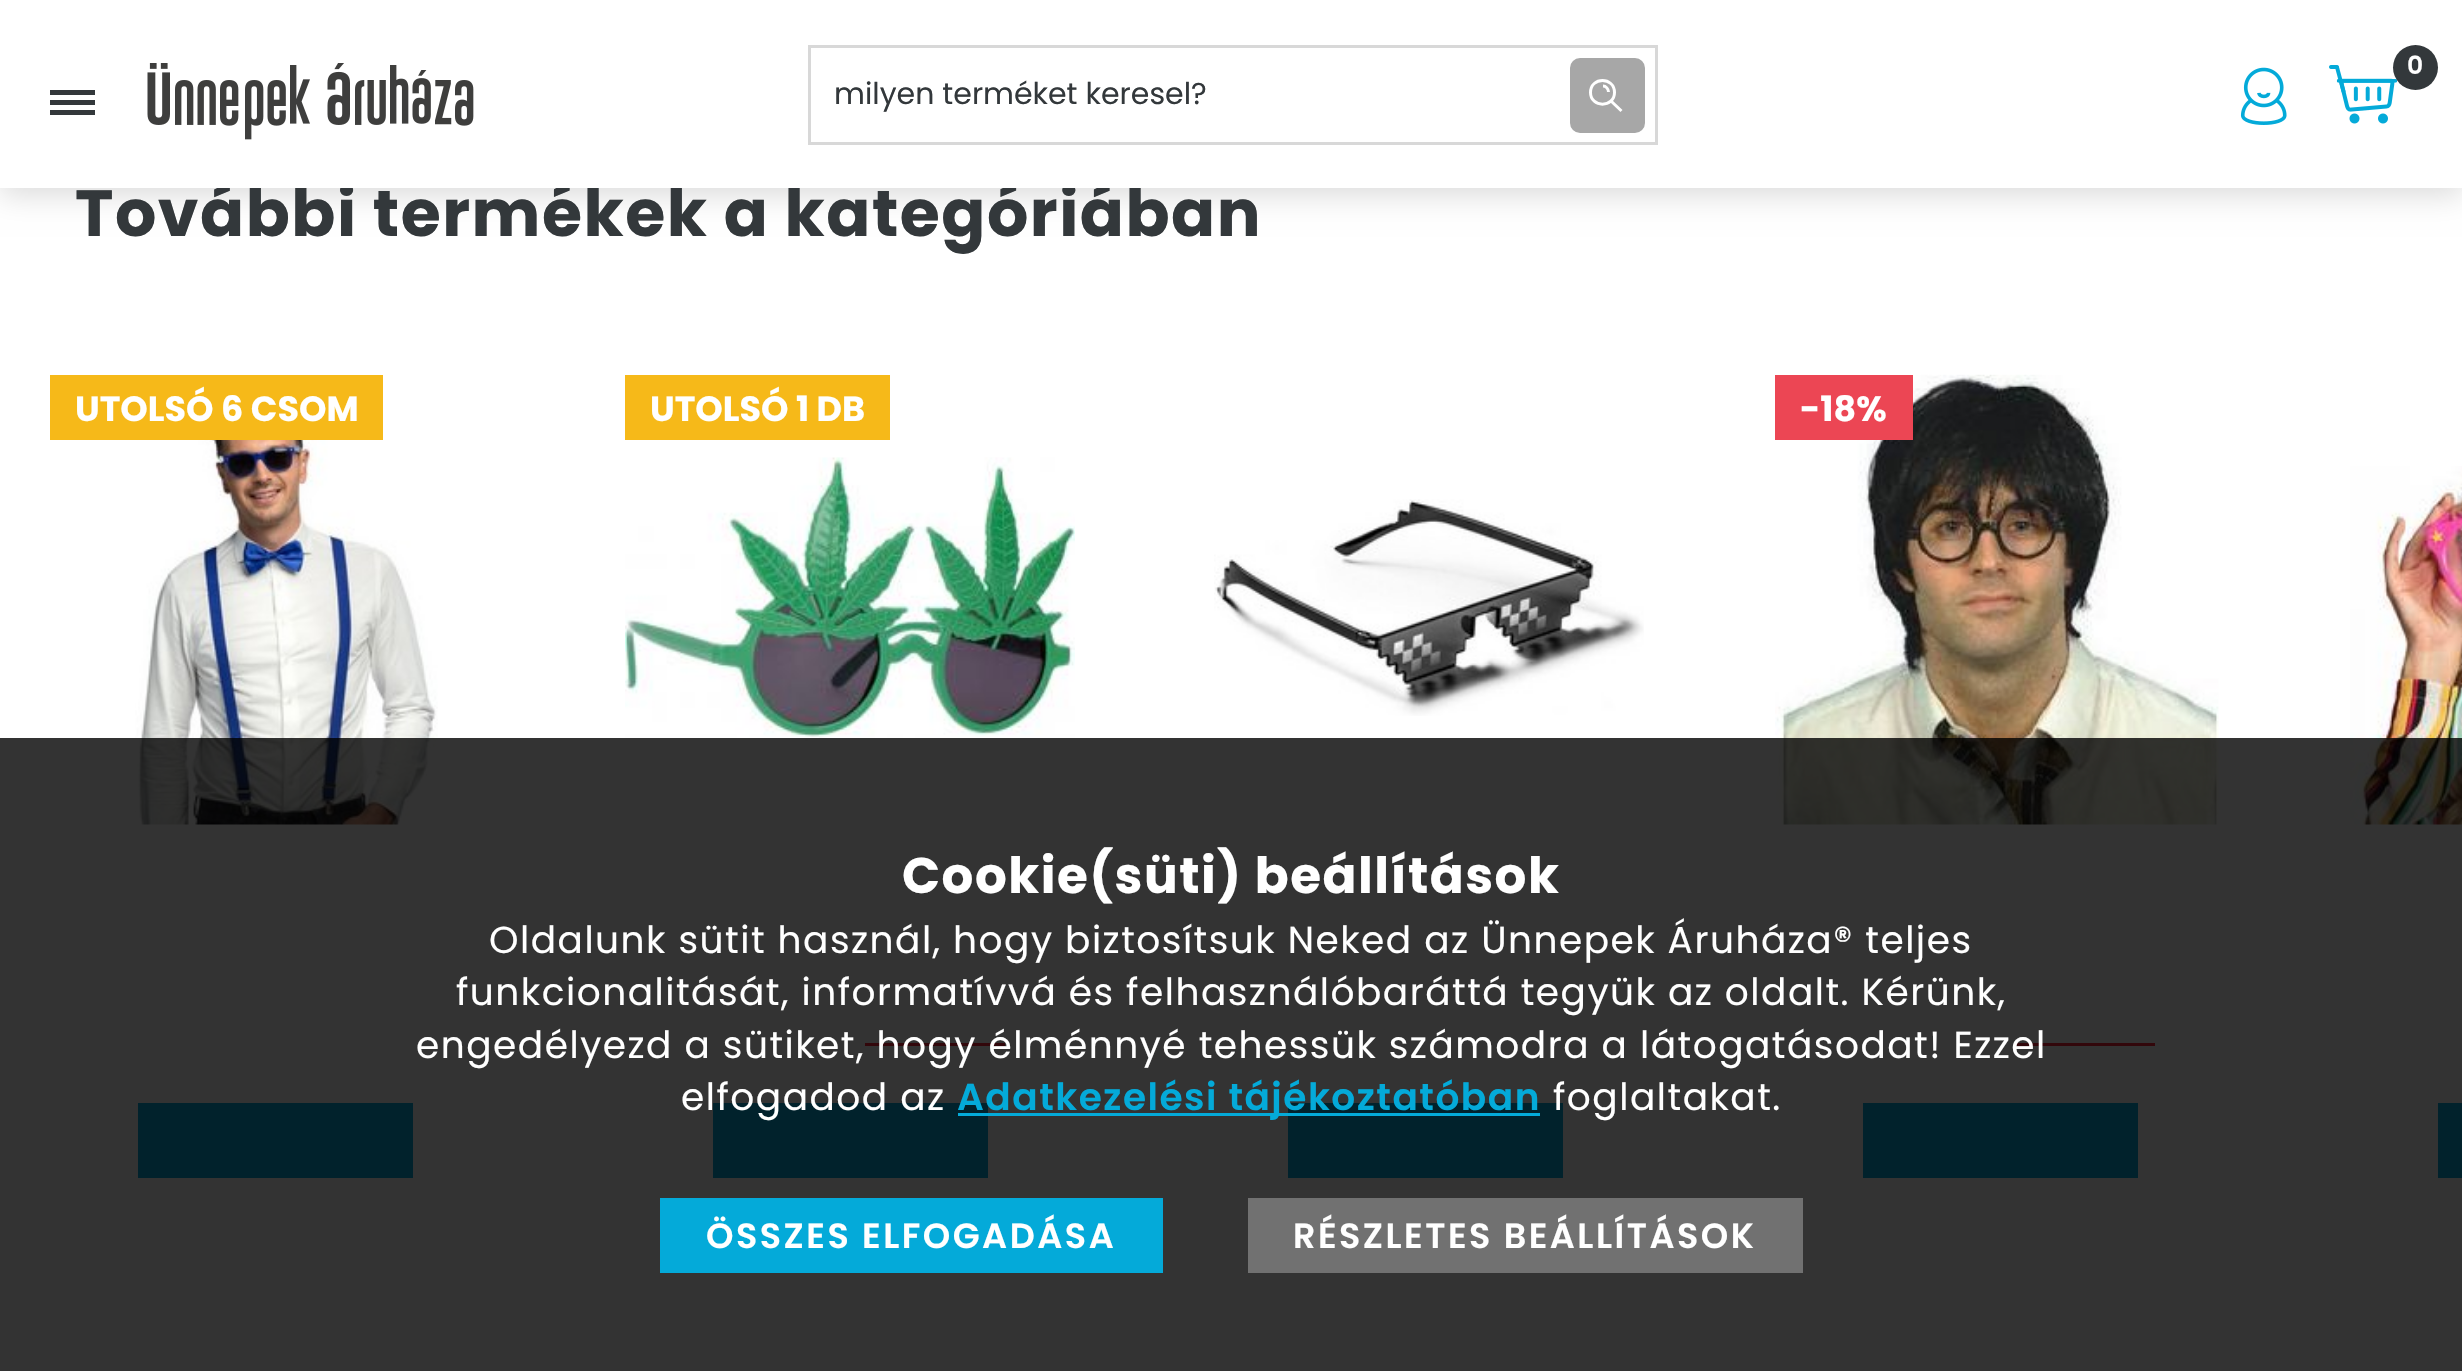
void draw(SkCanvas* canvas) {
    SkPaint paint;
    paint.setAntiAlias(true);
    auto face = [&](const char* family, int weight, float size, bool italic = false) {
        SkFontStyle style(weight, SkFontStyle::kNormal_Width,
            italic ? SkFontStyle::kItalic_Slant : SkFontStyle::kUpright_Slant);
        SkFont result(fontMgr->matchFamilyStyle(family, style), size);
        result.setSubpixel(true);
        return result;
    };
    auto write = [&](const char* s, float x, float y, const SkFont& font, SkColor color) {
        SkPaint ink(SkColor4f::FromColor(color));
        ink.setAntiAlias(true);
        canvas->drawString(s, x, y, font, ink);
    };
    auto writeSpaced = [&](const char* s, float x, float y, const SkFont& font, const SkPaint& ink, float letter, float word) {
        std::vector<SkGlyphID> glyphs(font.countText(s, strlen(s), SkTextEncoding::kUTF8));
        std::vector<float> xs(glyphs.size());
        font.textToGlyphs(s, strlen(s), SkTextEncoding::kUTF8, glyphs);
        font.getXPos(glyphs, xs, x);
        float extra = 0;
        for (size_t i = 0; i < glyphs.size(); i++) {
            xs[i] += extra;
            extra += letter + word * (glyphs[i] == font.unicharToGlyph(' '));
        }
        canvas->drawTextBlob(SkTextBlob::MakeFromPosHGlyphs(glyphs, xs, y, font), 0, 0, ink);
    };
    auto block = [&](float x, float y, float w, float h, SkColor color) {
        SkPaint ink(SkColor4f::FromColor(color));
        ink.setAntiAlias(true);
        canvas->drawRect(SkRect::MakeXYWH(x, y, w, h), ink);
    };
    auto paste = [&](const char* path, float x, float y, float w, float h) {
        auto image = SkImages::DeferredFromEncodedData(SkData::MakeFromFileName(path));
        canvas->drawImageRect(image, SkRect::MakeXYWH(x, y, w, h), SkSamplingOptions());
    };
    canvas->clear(SK_ColorWHITE);
    paint.setColor(SkColorSetARGB(36, 0, 0, 0));
    paint.setMaskFilter(SkMaskFilter::MakeBlur(kNormal_SkBlurStyle, 14));
    canvas->drawRect(SkRect::MakeXYWH(0, 8, 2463, 187), paint);
    paint.setMaskFilter(nullptr);
    auto kFont1 = face("Poppins", 700, 65);
    paint.setColor(SkColorSetRGB(51, 56, 59));
    writeSpaced("További termékek a kategóriában", 75, 236, kFont1, paint, 1.5f, 0);
    block(0, 0, 2462, 188, SK_ColorWHITE);
    block(50, 90, 45, 5, SkColorSetRGB(51, 56, 59));
    block(50, 100, 45, 5, SkColorSetRGB(51, 56, 59));
    block(50, 110, 45, 5, SkColorSetRGB(51, 56, 59));
    paste("pic1.png", 147, 63, 327, 77);
    paint.setStyle(SkPaint::kStroke_Style);
    paint.setStrokeWidth(3);
    paint.setColor(SkColorSetRGB(216, 216, 216));
    canvas->drawRect(SkRect::MakeXYWH(809.5f, 46.5f, 847, 97), paint);
    auto kFont2 = face("Poppins", 400, 30);
    write("milyen terméket keresel?", 834, 104, kFont2, SkColorSetRGB(51, 56, 59));
    paint.setStyle(SkPaint::kFill_Style);
    paint.setColor(SkColorSetRGB(167, 167, 167));
    canvas->drawRoundRect(SkRect::MakeXYWH(1571.5f, 59.5f, 72, 72), 8.5f, 8.5f, paint);
    paint.setStyle(SkPaint::kStroke_Style);
    canvas->drawRoundRect(SkRect::MakeXYWH(1571.5f, 59.5f, 72, 72), 8.5f, 8.5f, paint);
    paint.setColor(SK_ColorWHITE);
    canvas->drawPath(SkPathBuilder().moveTo(1614.5f, 92.5f).cubicTo(1614.5f, 108, 1590.5f, 108, 1590.5f, 92.5f).cubicTo(1590.5f, 76.5f, 1614.5f, 76.5f, 1614.5f, 92.5f).close().moveTo(1603, 86).cubicTo(1606, 86, 1608.5f, 89, 1608.5f, 92).moveTo(1611, 101).lineTo(1621.5f, 111).detach(), paint);
    paste("pic2.png", 2329, 65, 68, 59);
    paint.setStyle(SkPaint::kFill_Style);
    paint.setColor(SkColorSetRGB(51, 56, 59));
    canvas->drawCircle(2415.5f, 67.5f, 22.5f, paint);
    auto kFont3 = face("Poppins", 600, 25);
    paint.setColor(SK_ColorWHITE);
    writeSpaced("0", 2407, 74, kFont3, paint, 1, 0);
    paste("pic3.png", 2240, 67, 47, 58);
    paste("pic4.png", 135, 377, 303, 448);
    block(50, 375, 333, 65, SkColorSetRGB(246, 185, 25));
    auto kFont4 = face("Poppins", 700, 35);
    write("UTOLSÓ 6 CSOM", 75, 421, kFont4, SK_ColorWHITE);
    block(138, 1103, 275, 75, SkColorSetRGB(4, 170, 217));
    block(625, 375, 265, 65, SkColorSetRGB(246, 185, 25));
    write("UTOLSÓ 1 DB", 650, 421, kFont4, SK_ColorWHITE);
    paste("pic5.png", 625, 457, 450, 284);
    block(865, 1043, 140, 3, SkColorSetRGB(246, 33, 53));
    block(713, 1103, 275, 75, SkColorSetRGB(4, 170, 217));
    paste("pic6.png", 1775, 374, 444, 451);
    block(1775, 375, 138, 65, SkColorSetRGB(236, 70, 84));
    write("-18%", 1800, 421, kFont4, SK_ColorWHITE);
    block(2015, 1043, 140, 3, SkColorSetRGB(246, 33, 53));
    block(1863, 1103, 275, 75, SkColorSetRGB(4, 170, 217));
    paste("pic7.png", 1214, 499, 430, 217);
    block(1288, 1103, 275, 75, SkColorSetRGB(4, 170, 217));
    paste("pic8.png", 2350, 466, 112, 359);
    block(2438, 1103, 24, 75, SkColorSetRGB(4, 170, 217));
    block(0, 738, 2462, 633, SkColorSetARGB(204, 0, 0, 0));
    auto kFont5 = face("Poppins", 700, 50);
    writeSpaced("Cookie(süti) beállítások", 902, 893, kFont5, paint, 1.5f, 0);
    auto kFont6 = face("Poppins", 400, 37.5f);
    writeSpaced("Oldalunk sütit használ, hogy biztosítsuk Neked az Ünnepek Áruháza® teljes", 489, 953, kFont6, paint, 1.5f, 0);
    writeSpaced("funkcionalitását, informatívvá és felhasználóbaráttá tegyük az oldalt. Kérünk,", 456, 1005, kFont6, paint, 1.5f, 0);
    writeSpaced("engedélyezd a sütiket, hogy élménnyé tehessük számodra a látogatásodat! Ezzel", 416, 1058, kFont6, paint, 1.5f, 0);
    writeSpaced("elfogadod az", 681, 1110, kFont6, paint, 1.5f, 0);
    block(958, 1113, 582, 3, SkColorSetRGB(4, 170, 217));
    auto kFont7 = face("Poppins", 600, 37.5f);
    paint.setColor(SkColorSetRGB(4, 170, 217));
    writeSpaced("Adatkezelési tájékoztatóban", 957, 1110, kFont7, paint, 1.5f, 0);
    paint.setColor(SK_ColorWHITE);
    writeSpaced("foglaltakat.", 1553, 1110, kFont6, paint, 1.5f, 0);
    block(660, 1198, 503, 75, SkColorSetRGB(4, 170, 217));
    auto kFont8 = face("Poppins", 600, 35);
    writeSpaced("ÖSSZES ELFOGADÁSA", 706, 1248, kFont8, paint, 2.5f, 0);
    block(1248, 1198, 555, 75, SkColorSetRGB(113, 113, 113));
    writeSpaced("RÉSZLETES BEÁLLÍTÁSOK", 1293, 1248, kFont8, paint, 2.5f, 0);
}
